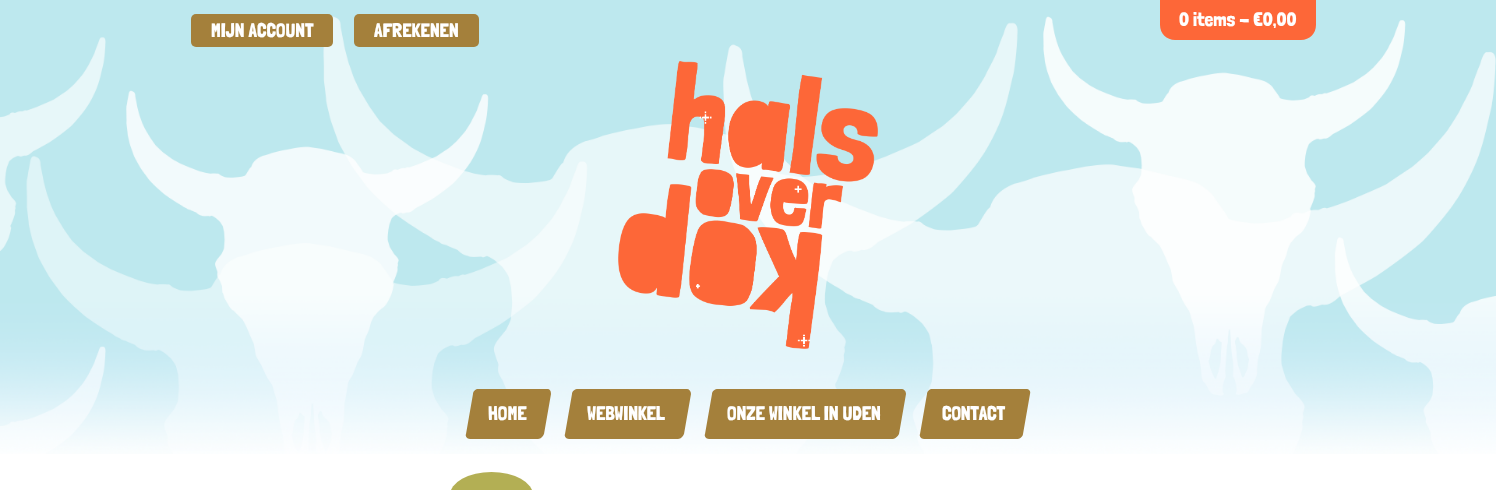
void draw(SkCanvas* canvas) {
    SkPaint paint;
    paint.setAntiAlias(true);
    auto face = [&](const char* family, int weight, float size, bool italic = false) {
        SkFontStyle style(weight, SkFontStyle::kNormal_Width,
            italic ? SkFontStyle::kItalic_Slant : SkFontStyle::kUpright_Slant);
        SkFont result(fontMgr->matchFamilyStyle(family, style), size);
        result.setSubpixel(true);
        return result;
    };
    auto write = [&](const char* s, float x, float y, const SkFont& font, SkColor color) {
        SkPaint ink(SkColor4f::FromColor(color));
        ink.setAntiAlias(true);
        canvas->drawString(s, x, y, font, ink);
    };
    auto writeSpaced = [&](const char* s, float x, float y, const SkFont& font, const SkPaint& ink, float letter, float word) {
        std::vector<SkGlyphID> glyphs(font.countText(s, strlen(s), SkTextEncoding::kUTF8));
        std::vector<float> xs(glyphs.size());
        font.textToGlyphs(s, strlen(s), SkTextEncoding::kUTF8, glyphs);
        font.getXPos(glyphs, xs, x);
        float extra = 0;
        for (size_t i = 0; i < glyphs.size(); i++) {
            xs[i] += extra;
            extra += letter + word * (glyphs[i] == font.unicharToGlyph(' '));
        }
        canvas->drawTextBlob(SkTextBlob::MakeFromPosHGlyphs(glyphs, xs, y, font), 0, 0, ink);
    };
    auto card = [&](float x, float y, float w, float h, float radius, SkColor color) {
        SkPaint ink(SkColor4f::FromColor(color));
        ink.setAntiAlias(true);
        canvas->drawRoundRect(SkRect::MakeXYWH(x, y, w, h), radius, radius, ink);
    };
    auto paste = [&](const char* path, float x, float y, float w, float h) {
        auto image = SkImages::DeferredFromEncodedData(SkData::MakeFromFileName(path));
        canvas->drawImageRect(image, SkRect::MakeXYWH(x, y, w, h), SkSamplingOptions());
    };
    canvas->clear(SK_ColorWHITE);
    paste("pic1.png", 0, 0, 1496, 454);
    paint.setColor(SkColorSetRGB(253, 103, 56));
    canvas->drawPath(SkPathBuilder().moveTo(1160, 0).lineTo(1316, 0).lineTo(1316, 25).cubicTo(1316, 33.5f, 1309.5f, 40, 1301, 40).lineTo(1175, 40).cubicTo(1166.5f, 40, 1160, 33.5f, 1160, 25).close().detach(), paint);
    auto kFont1 = face("Londrina Solid", 400, 19.5f);
    write("0 items - €0,00", 1179, 26, kFont1, SK_ColorWHITE);
    card(191, 14, 142, 33, 5, SkColorSetRGB(164, 128, 59));
    write("MIJN ACCOUNT", 211, 37, kFont1, SK_ColorWHITE);
    card(354, 14, 125, 33, 5, SkColorSetRGB(164, 128, 59));
    write("AFREKENEN", 374, 37, kFont1, SK_ColorWHITE);
    paste("pic2.png", 618, 61, 260, 288);
    paste("pic3.png", 696, 111, 115, 236);
    paint.setColor(SkColorSetRGB(164, 128, 59));
    canvas->drawPath(SkPathBuilder().moveTo(478, 389).lineTo(547, 389).cubicTo(550, 389, 551, 391, 551, 394).lineTo(544, 434).cubicTo(543, 436, 541, 439, 538, 439).lineTo(470, 439).cubicTo(467, 439, 465, 436, 466, 434).lineTo(473, 394).cubicTo(473, 391, 476, 389, 478, 389).close().detach(), paint);
    auto kFont2 = face("Londrina Solid", 400, 19.75f);
    write("HOME", 488, 420, kFont2, SK_ColorWHITE);
    canvas->drawPath(SkPathBuilder().moveTo(578, 389).lineTo(687, 389).cubicTo(689, 389, 691, 391, 691, 394).lineTo(684, 434).cubicTo(683, 436, 681, 439, 678, 439).lineTo(569, 439).cubicTo(566, 439, 564, 436, 565, 434).lineTo(572, 394).cubicTo(572, 391, 575, 389, 578, 389).close().detach(), paint);
    paint.setColor(SK_ColorWHITE);
    writeSpaced("WEBWINKEL", 587, 420, kFont2, paint, -0.25f, 0);
    paint.setColor(SkColorSetRGB(164, 128, 59));
    canvas->drawPath(SkPathBuilder().moveTo(718, 389).lineTo(901, 389).cubicTo(904, 389, 906, 391, 906, 394).lineTo(899, 434).cubicTo(898, 436, 895, 439, 893, 439).lineTo(709, 439).cubicTo(706, 439, 704, 436, 705, 434).lineTo(712, 394).cubicTo(712, 391, 715, 389, 718, 389).close().detach(), paint);
    paint.setColor(SK_ColorWHITE);
    writeSpaced("ONZE WINKEL IN UDEN", 727, 420, kFont2, paint, -0.1f, 0);
    paint.setColor(SkColorSetRGB(164, 128, 59));
    canvas->drawPath(SkPathBuilder().moveTo(932, 389).lineTo(1026, 389).cubicTo(1029, 389, 1031, 391, 1030, 394).lineTo(1023, 434).cubicTo(1023, 436, 1020, 439, 1018, 439).lineTo(924, 439).cubicTo(921, 439, 919, 436, 920, 434).lineTo(927, 394).cubicTo(927, 391, 930, 389, 932, 389).close().detach(), paint);
    paint.setColor(SK_ColorWHITE);
    writeSpaced("CONTACT", 942, 420, kFont2, paint, -0.25f, 0);
    paint.setColor(SkColorSetRGB(179, 175, 84));
    canvas->drawOval(SkRect::MakeXYWH(450, 472, 83, 46), paint);
}
